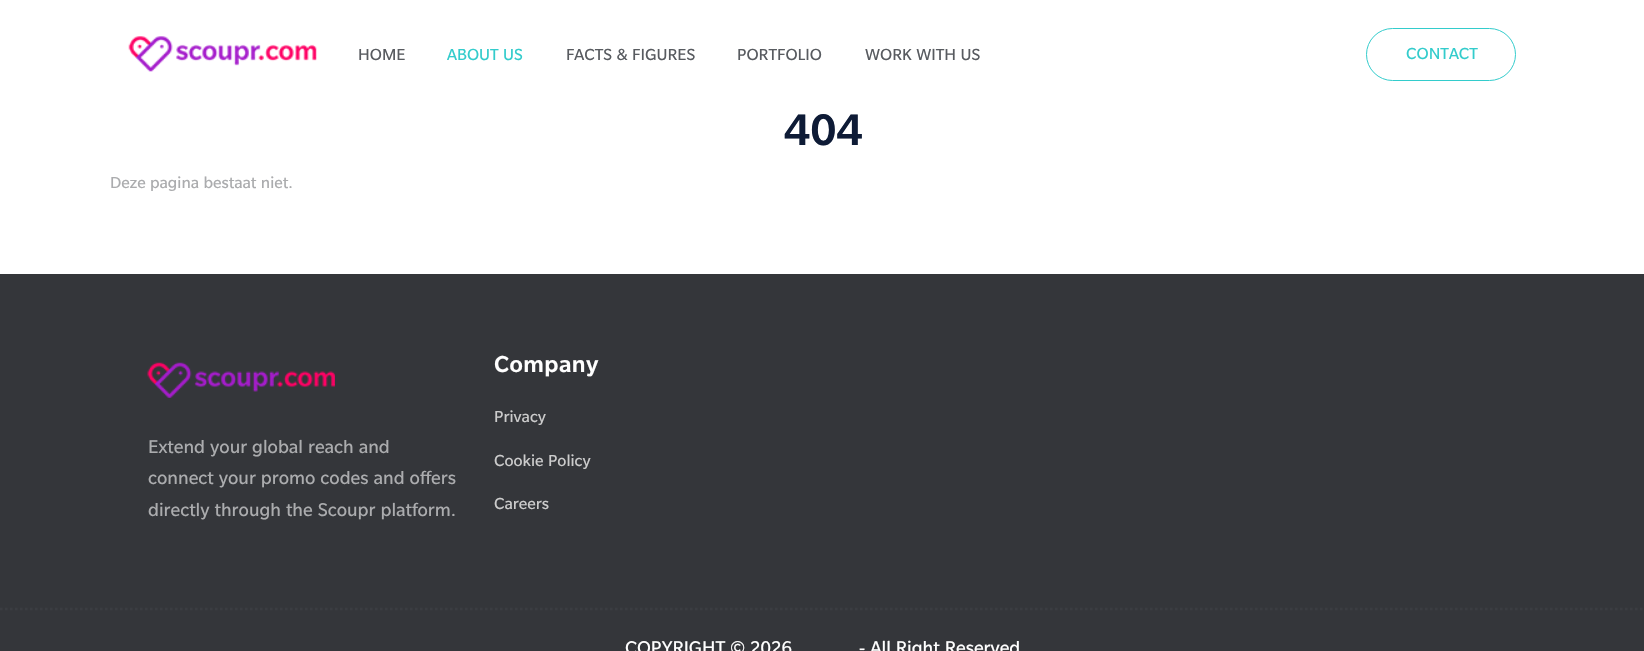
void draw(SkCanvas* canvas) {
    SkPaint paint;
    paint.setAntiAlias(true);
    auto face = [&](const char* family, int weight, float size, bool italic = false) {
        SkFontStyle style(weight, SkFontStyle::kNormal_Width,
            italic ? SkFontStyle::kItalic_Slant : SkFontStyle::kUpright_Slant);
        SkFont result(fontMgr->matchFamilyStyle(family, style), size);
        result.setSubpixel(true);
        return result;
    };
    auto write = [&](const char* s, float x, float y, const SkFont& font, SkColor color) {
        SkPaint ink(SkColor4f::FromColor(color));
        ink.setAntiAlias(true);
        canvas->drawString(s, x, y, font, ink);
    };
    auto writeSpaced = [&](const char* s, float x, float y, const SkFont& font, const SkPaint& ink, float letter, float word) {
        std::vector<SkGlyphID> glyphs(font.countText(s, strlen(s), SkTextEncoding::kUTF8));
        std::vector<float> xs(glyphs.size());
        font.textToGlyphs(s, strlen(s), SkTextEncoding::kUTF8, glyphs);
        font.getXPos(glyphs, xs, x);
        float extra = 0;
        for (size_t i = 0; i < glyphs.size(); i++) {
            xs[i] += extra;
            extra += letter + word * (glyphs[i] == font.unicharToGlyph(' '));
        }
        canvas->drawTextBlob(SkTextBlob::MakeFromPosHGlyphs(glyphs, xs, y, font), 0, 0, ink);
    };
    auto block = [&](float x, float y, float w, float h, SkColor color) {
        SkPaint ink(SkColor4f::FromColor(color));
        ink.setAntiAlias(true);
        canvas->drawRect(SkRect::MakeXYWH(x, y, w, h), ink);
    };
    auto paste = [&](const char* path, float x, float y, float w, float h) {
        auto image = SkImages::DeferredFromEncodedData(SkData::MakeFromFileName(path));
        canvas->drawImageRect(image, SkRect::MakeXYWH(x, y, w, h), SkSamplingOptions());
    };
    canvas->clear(SK_ColorWHITE);
    paste("pic1.png", 128, 36, 189, 36);
    auto kFont1 = face("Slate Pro", 400, 17.5f);
    write("HOME", 358, 60, kFont1, SkColorSetRGB(88, 91, 96));
    write("ABOUT US", 447, 60, kFont1, SkColorSetRGB(51, 204, 204));
    write("FACTS & FIGURES", 566, 60, kFont1, SkColorSetRGB(88, 91, 96));
    write("PORTFOLIO", 737, 60, kFont1, SkColorSetRGB(88, 91, 96));
    write("WORK WITH US", 865, 60, kFont1, SkColorSetRGB(88, 91, 96));
    paint.setStyle(SkPaint::kStroke_Style);
    paint.setStrokeWidth(1);
    paint.setColor(SkColorSetRGB(51, 204, 204));
    canvas->drawRoundRect(SkRect::MakeXYWH(1366.5f, 28.5f, 149, 52), 26, 26, paint);
    write("CONTACT", 1406, 59, kFont1, SkColorSetRGB(51, 204, 204));
    auto kFont2 = face("Slate Pro", 500, 48);
    write("404", 784, 145, kFont2, SkColorSetRGB(14, 27, 54));
    write("Deze pagina bestaat niet.", 110, 188, kFont1, SkColorSetRGB(171, 172, 174));
    block(0, 274, 1644, 377, SkColorSetRGB(52, 54, 58));
    paste("pic2.png", 147, 362, 188, 36);
    auto kFont3 = face("Slate Pro", 400, 20);
    write("Extend your global reach and", 148, 453, kFont3, SkColorSetRGB(171, 172, 174));
    write("connect your promo codes and offers", 148, 484, kFont3, SkColorSetRGB(171, 172, 174));
    write("directly through the Scoupr platform.", 148, 516, kFont3, SkColorSetRGB(171, 172, 174));
    auto kFont4 = face("Slate Pro", 500, 25);
    paint.setStyle(SkPaint::kFill_Style);
    paint.setColor(SK_ColorWHITE);
    writeSpaced("Company", 494, 372, kFont4, paint, 0.5f, 0);
    write("Privacy", 494, 422, kFont1, SkColorSetRGB(204, 204, 204));
    write("Cookie Policy", 494, 466, kFont1, SkColorSetRGB(204, 204, 204));
    write("Careers", 494, 509, kFont1, SkColorSetRGB(204, 204, 204));
    paint.setStyle(SkPaint::kStroke_Style);
    paint.setStrokeWidth(2.5f);
    paint.setColor(SkColorSetRGB(59, 61, 66));
    paint.setPathEffect(SkDashPathEffect::Make({{2.5f, 2.5f}}, 0));
    canvas->drawPath(SkPathBuilder().moveTo(0, 609).lineTo(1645, 609).detach(), paint);
    paint.setPathEffect(nullptr);
    write("COPYRIGHT © 2026", 625, 654, kFont3, SK_ColorWHITE);
    write("- All Right Reserved", 859, 654, kFont3, SK_ColorWHITE);
}
